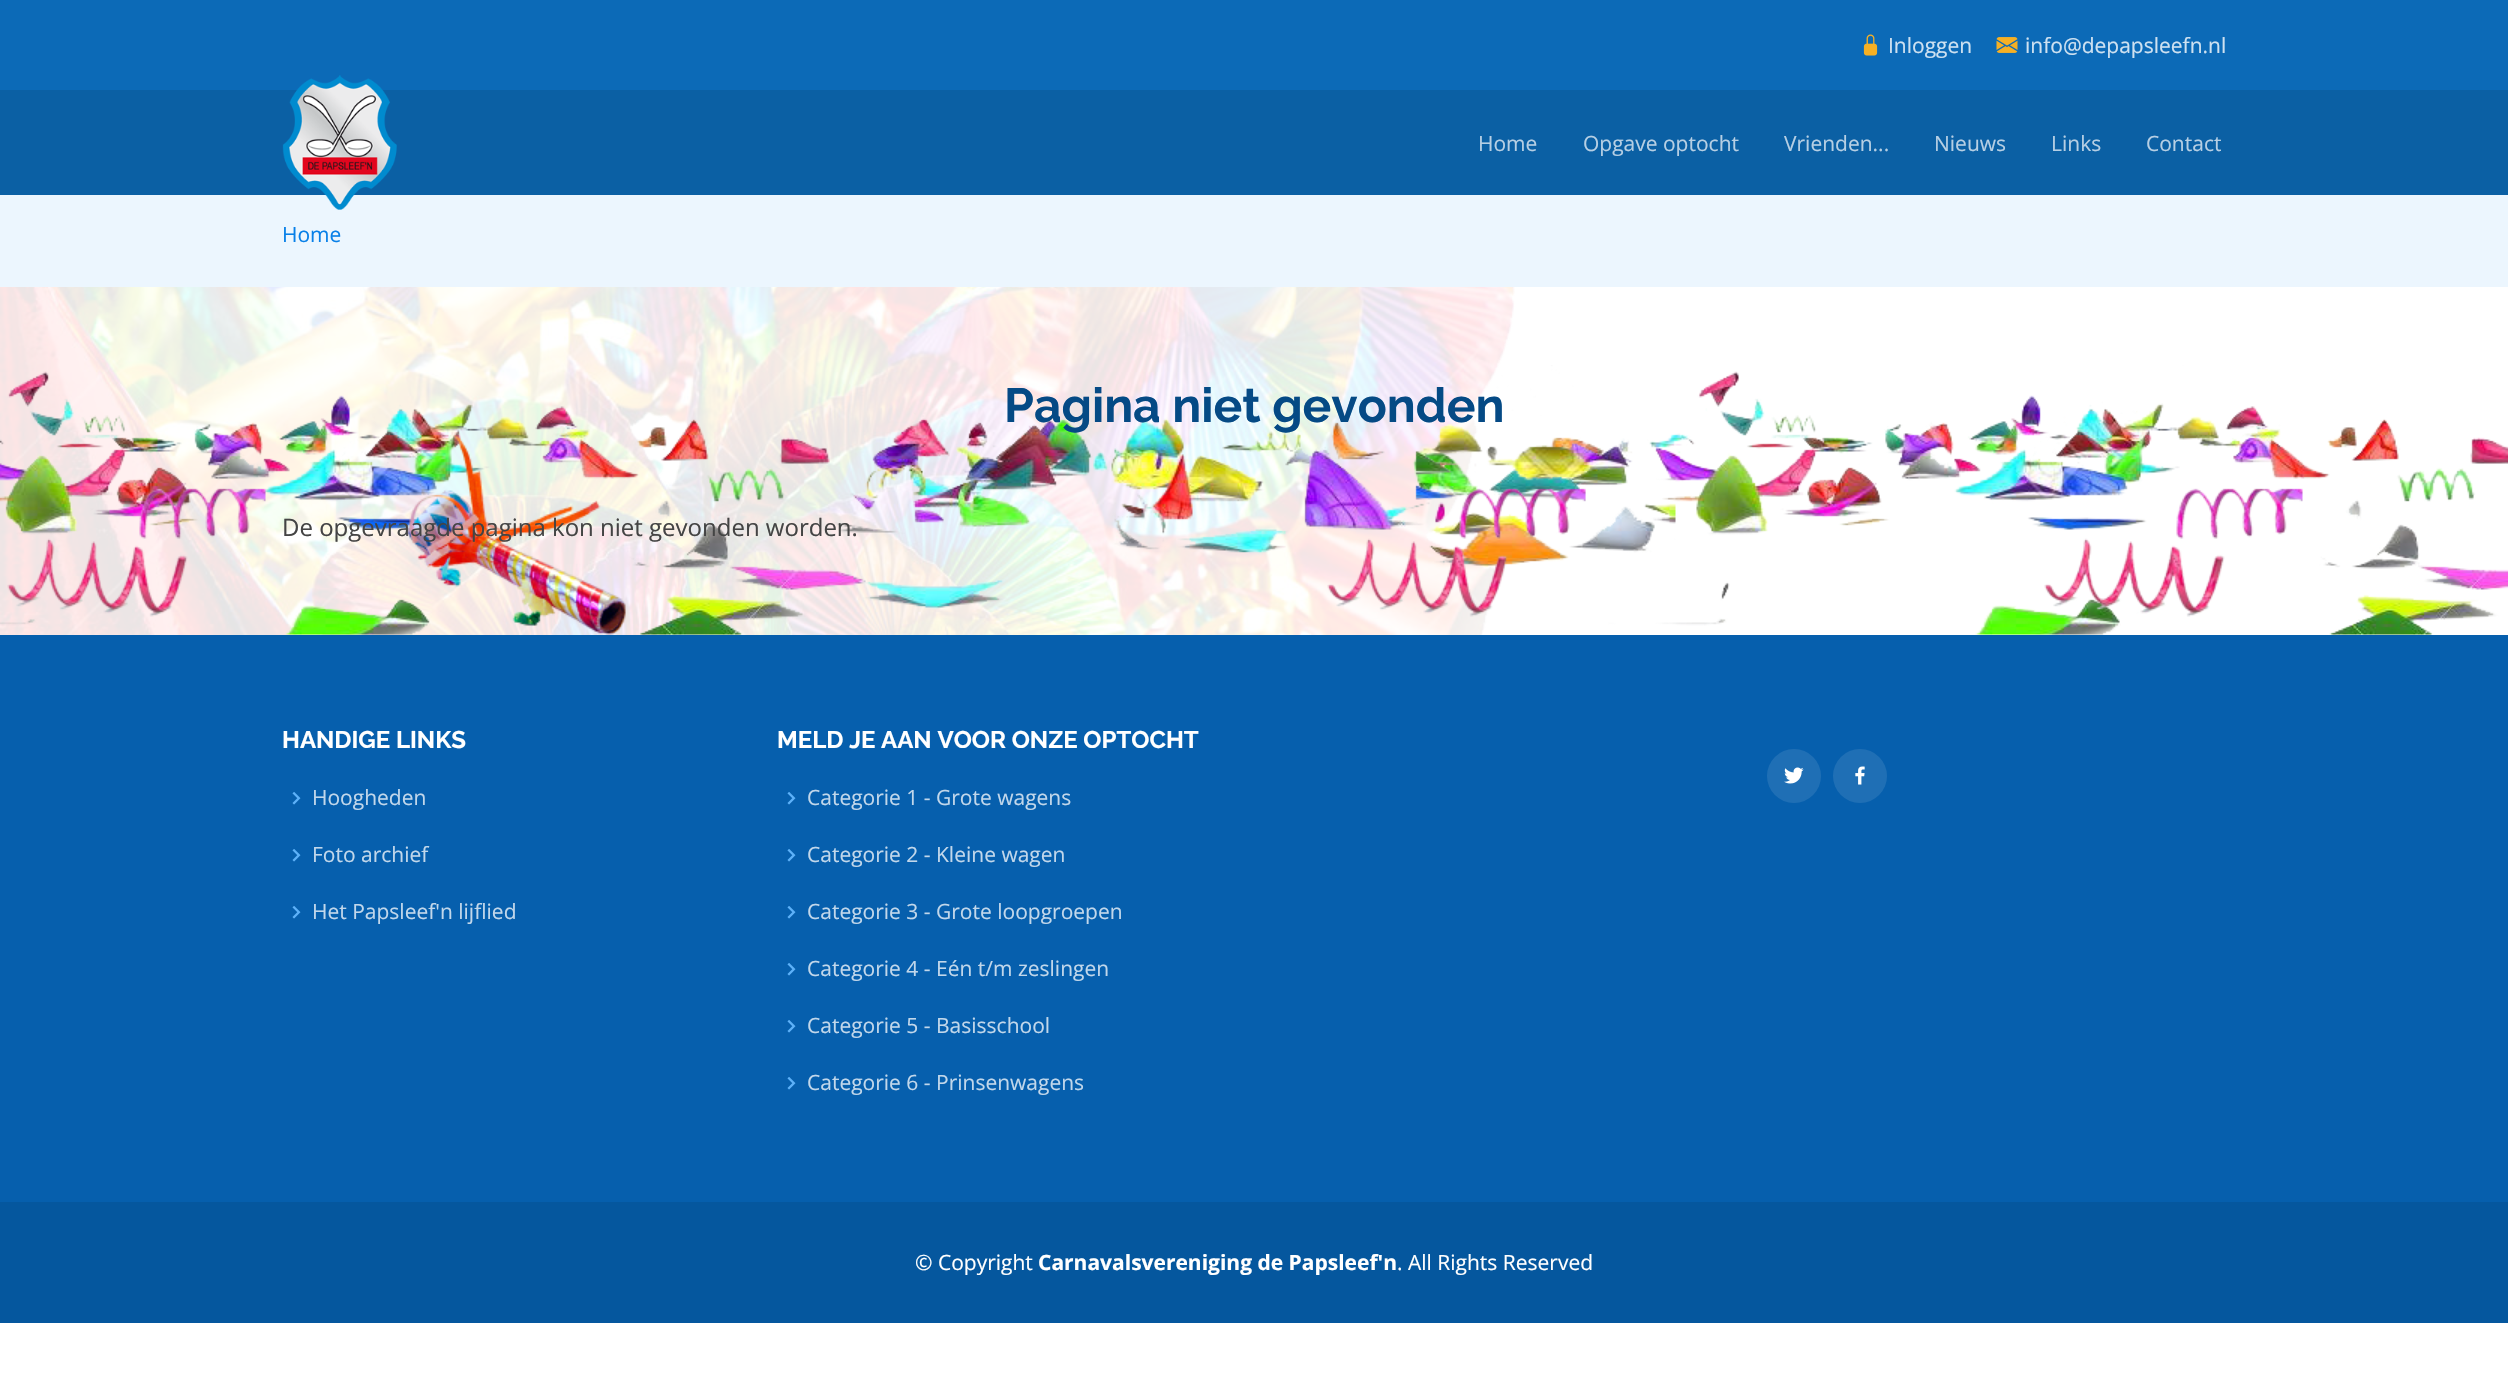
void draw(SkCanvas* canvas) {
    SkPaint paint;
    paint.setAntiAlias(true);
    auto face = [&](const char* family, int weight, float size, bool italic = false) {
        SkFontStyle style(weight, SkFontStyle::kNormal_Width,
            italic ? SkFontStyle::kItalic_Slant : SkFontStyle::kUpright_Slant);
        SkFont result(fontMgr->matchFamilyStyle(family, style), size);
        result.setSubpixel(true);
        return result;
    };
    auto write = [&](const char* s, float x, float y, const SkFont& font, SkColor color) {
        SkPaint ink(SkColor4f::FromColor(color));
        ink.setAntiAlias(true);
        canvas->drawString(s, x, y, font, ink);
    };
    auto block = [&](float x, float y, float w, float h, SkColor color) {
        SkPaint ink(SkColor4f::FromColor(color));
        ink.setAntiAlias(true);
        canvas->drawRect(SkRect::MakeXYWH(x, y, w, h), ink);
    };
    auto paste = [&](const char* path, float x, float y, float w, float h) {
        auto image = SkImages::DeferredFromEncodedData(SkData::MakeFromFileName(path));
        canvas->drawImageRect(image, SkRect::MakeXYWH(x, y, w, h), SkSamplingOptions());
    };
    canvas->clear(SK_ColorWHITE);
    block(0, 0, 2508, 90, SkColorSetRGB(12, 106, 183));
    paste("pic1.png", 1863, 34, 15, 22);
    auto kFont1 = face("Open Sans", 400, 21);
    write("Inloggen", 1888, 53, kFont1, SkColorSetRGB(206, 225, 241));
    paste("pic2.png", 1996, 37, 22, 16);
    write("info@depapsleefn.nl", 2025, 53, kFont1, SkColorSetRGB(206, 225, 241));
    block(0, 90, 2508, 105, SkColorSetRGB(11, 96, 164));
    block(0, 195, 2508, 92, SkColorSetRGB(236, 246, 254));
    paste("pic3.png", 282, 75, 115, 135);
    write("Home", 1478, 151, kFont1, SkColorSetRGB(182, 207, 228));
    write("Opgave optocht", 1583, 151, kFont1, SkColorSetRGB(182, 207, 228));
    write("Vrienden...", 1784, 151, kFont1, SkColorSetRGB(182, 207, 228));
    write("Nieuws", 1934, 151, kFont1, SkColorSetRGB(182, 207, 228));
    write("Links", 2051, 151, kFont1, SkColorSetRGB(182, 207, 228));
    write("Contact", 2146, 151, kFont1, SkColorSetRGB(182, 207, 228));
    write("Home", 282, 242, kFont1, SkColorSetRGB(8, 128, 232));
    paste("pic5.png", 0, 287, 1515, 348);
    paste("pic4.png", 0, 365, 2508, 270);
    auto kFont2 = face("Raleway", 700, 48);
    write("Pagina niet gevonden", 1004, 422, kFont2, SkColorSetRGB(5, 74, 133));
    auto kFont3 = face("Open Sans", 400, 24);
    write("De opgevraagde pagina kon niet gevonden worden.", 282, 536, kFont3, SkColorSetRGB(68, 68, 68));
    block(0, 1202, 2508, 121, SkColorSetRGB(5, 87, 158));
    block(0, 635, 2508, 567, SkColorSetRGB(6, 95, 173));
    auto kFont4 = face("Raleway", 700, 24);
    write("HANDIGE LINKS", 282, 748, kFont4, SK_ColorWHITE);
    paste("pic6.png", 292, 792, 9, 13);
    write("Hoogheden", 312, 805, kFont1, SkColorSetRGB(193, 215, 235));
    paste("pic6.png", 292, 849, 9, 13);
    write("Foto archief", 312, 862, kFont1, SkColorSetRGB(193, 215, 235));
    paste("pic6.png", 292, 906, 9, 13);
    write("Het Papsleef'n lijflied", 312, 919, kFont1, SkColorSetRGB(193, 215, 235));
    write("MELD JE AAN VOOR ONZE OPTOCHT", 777, 748, kFont4, SK_ColorWHITE);
    paste("pic6.png", 787, 792, 9, 13);
    write("Categorie 1 - Grote wagens", 807, 805, kFont1, SkColorSetRGB(193, 215, 235));
    paste("pic6.png", 787, 849, 9, 13);
    write("Categorie 2 - Kleine wagen", 807, 862, kFont1, SkColorSetRGB(193, 215, 235));
    paste("pic6.png", 787, 906, 9, 13);
    write("Categorie 3 - Grote loopgroepen", 807, 919, kFont1, SkColorSetRGB(193, 215, 235));
    paste("pic6.png", 787, 963, 9, 13);
    write("Categorie 4 - Eén t/m zeslingen", 807, 976, kFont1, SkColorSetRGB(193, 215, 235));
    paste("pic6.png", 787, 1020, 9, 13);
    write("Categorie 5 - Basisschool", 807, 1033, kFont1, SkColorSetRGB(193, 215, 235));
    paste("pic6.png", 787, 1077, 9, 13);
    write("Categorie 6 - Prinsenwagens", 807, 1090, kFont1, SkColorSetRGB(193, 215, 235));
    paint.setColor(SkColorSetRGB(31, 111, 181));
    canvas->drawCircle(1794, 776, 27, paint);
    paste("pic7.png", 1784, 767, 20, 17);
    canvas->drawCircle(1860, 776, 27, paint);
    paste("pic8.png", 1855, 766, 10, 19);
    write("© Copyright", 915, 1270, kFont1, SK_ColorWHITE);
    auto kFont5 = face("Open Sans", 700, 21);
    write("Carnavalsvereniging de Papsleef'n", 1038, 1270, kFont5, SK_ColorWHITE);
    write(". All Rights Reserved", 1397, 1270, kFont1, SK_ColorWHITE);
}
